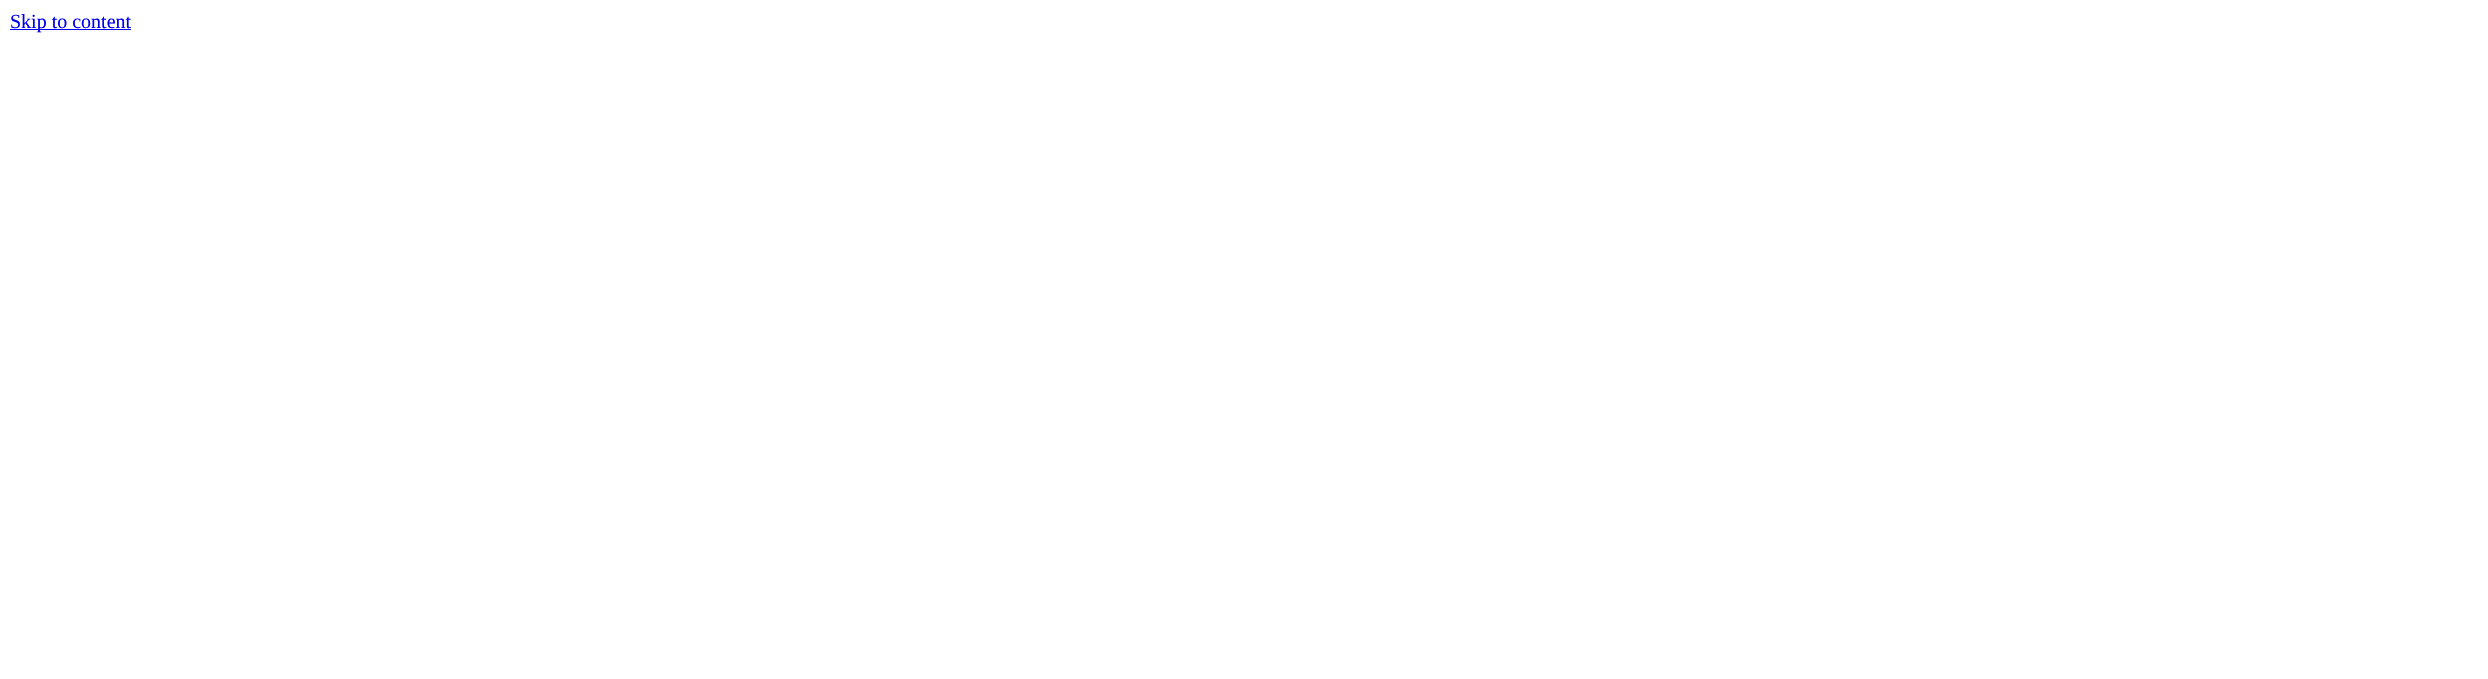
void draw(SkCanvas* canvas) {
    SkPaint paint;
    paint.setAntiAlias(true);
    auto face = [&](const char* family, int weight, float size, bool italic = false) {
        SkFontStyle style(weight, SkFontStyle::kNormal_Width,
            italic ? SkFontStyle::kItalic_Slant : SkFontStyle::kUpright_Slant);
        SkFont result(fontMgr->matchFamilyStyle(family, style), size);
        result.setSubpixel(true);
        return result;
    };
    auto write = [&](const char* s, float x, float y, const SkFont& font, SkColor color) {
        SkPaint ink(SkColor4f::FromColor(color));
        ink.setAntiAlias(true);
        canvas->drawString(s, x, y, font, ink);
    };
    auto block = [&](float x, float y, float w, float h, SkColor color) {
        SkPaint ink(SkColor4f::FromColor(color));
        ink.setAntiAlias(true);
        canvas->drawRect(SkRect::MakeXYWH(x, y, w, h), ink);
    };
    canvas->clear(SK_ColorWHITE);
    block(10, 29, 121, 1, SkColorSetRGB(0, 0, 238));
    auto kFont1 = face("Liberation Serif", 400, 20);
    write("Skip to content", 10, 28, kFont1, SkColorSetRGB(0, 0, 238));
}
